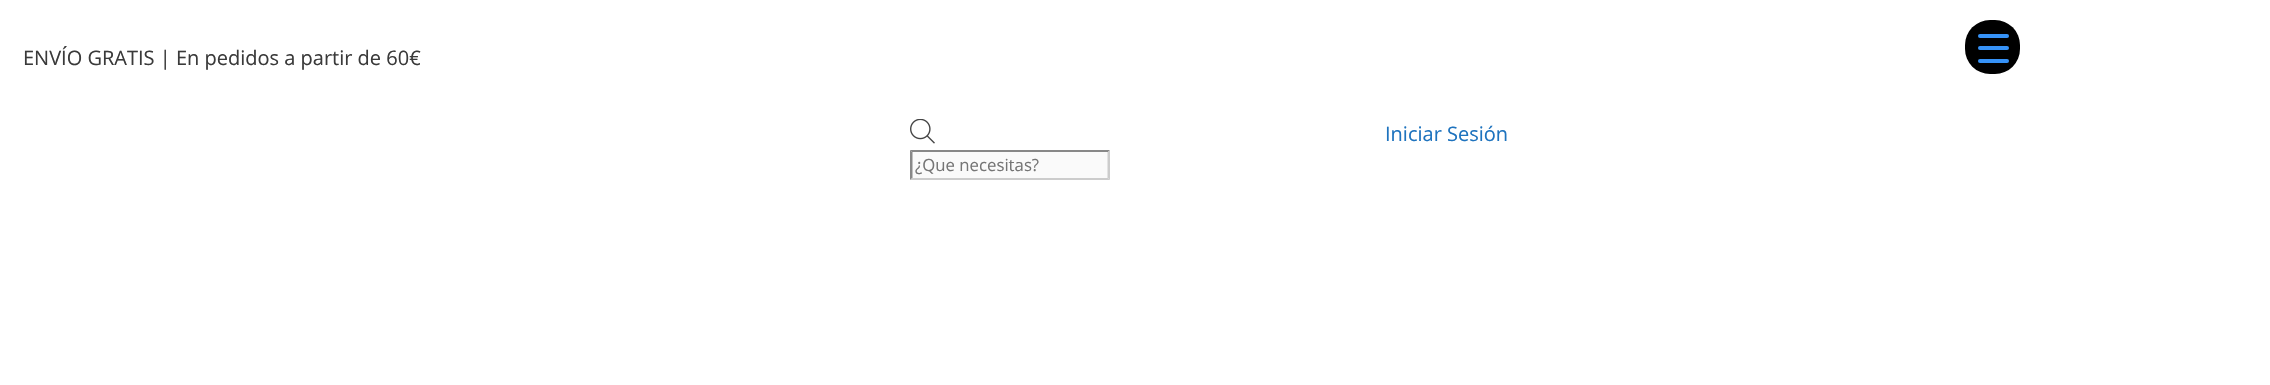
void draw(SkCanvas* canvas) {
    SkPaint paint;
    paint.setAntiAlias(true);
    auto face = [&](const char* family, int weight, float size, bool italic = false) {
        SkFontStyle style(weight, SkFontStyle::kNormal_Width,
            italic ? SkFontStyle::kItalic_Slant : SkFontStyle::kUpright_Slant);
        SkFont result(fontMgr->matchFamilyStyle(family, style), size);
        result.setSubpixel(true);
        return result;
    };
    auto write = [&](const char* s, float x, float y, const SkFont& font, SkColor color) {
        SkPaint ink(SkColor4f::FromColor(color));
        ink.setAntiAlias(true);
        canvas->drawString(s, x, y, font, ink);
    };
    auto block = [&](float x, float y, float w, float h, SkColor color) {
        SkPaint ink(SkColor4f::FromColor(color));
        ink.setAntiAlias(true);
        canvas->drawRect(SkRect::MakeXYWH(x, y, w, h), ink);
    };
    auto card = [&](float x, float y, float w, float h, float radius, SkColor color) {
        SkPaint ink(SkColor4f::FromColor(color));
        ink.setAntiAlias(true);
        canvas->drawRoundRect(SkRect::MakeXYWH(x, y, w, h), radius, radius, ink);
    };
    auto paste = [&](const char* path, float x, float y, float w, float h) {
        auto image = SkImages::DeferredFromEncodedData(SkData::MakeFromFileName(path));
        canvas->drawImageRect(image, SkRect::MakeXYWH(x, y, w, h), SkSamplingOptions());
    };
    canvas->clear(SK_ColorWHITE);
    auto kFont1 = face("Open Sans", 400, 20);
    write("ENVÍO GRATIS | En pedidos a partir de 60€", 23, 65, kFont1, SkColorSetRGB(58, 58, 58));
    write("Iniciar Sesión", 1385, 141, kFont1, SkColorSetRGB(30, 115, 190));
    paste("pic1.png", 910, 119, 25, 25);
    block(910, 150, 200, 30, SkColorSetRGB(250, 250, 250));
    paint.setColor(SkColorSetRGB(136, 136, 136));
    canvas->drawPath(SkPathBuilder().moveTo(910, 150).lineTo(1110, 150).lineTo(1108, 152).lineTo(912, 152).close().detach(), paint);
    paint.setColor(SkColorSetRGB(204, 204, 204));
    canvas->drawPath(SkPathBuilder().moveTo(1110, 150).lineTo(1110, 180).lineTo(1107.5f, 177.5f).lineTo(1107.5f, 152.5f).close().detach(), paint);
    canvas->drawPath(SkPathBuilder().moveTo(1110, 180).lineTo(910, 180).lineTo(912, 178).lineTo(1108, 178).close().detach(), paint);
    paint.setColor(SkColorSetRGB(136, 136, 136));
    canvas->drawPath(SkPathBuilder().moveTo(910, 180).lineTo(910, 150).lineTo(912.5f, 152.5f).lineTo(912.5f, 177.5f).close().detach(), paint);
    auto kFont2 = face("Open Sans", 400, 16.75f);
    write("¿Que necesitas?", 915, 171, kFont2, SkColorSetRGB(117, 117, 117));
    card(1965, 20, 55, 54, 25, SK_ColorBLACK);
    card(1978, 46, 31, 4, 2, SkColorSetRGB(54, 146, 247));
    card(1978, 34, 31, 4, 2, SkColorSetRGB(54, 146, 247));
    card(1978, 59, 31, 4, 2, SkColorSetRGB(54, 146, 247));
}
